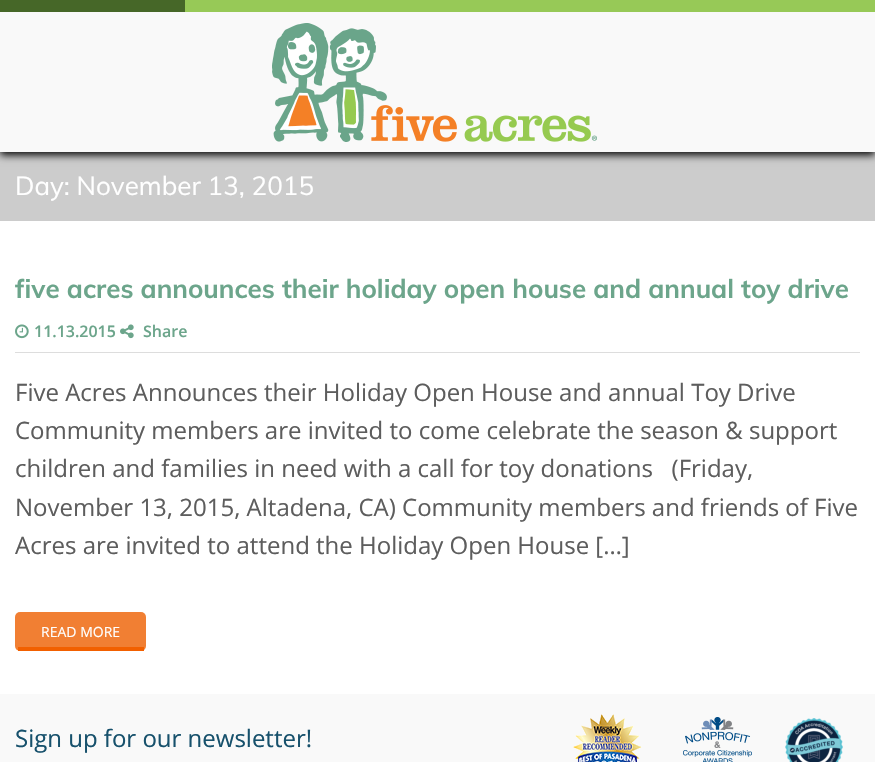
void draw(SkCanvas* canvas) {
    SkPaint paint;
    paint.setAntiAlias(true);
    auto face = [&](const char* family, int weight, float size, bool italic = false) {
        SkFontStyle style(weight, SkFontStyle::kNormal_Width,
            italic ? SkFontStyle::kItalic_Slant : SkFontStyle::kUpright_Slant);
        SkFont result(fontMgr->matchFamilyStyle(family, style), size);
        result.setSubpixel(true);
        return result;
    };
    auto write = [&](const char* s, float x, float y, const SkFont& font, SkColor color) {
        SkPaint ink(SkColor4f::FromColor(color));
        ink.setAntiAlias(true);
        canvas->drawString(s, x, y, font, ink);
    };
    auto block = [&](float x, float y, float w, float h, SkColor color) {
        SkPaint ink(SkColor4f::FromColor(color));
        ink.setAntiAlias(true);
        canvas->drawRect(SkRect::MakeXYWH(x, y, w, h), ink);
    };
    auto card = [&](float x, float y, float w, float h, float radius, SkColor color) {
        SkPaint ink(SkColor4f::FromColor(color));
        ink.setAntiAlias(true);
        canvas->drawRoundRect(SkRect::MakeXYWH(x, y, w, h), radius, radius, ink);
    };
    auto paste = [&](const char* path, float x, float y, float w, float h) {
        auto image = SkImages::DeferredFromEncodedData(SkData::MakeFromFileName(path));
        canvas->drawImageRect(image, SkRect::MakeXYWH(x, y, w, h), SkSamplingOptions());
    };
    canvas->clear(SK_ColorWHITE);
    block(0, 152, 875, 69, SkColorSetRGB(204, 204, 204));
    paint.setColor(SK_ColorBLACK);
    paint.setMaskFilter(SkMaskFilter::MakeBlur(kNormal_SkBlurStyle, 4));
    canvas->drawRect(SkRect::MakeXYWH(0, -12, 875, 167), paint);
    paint.setMaskFilter(nullptr);
    block(0, 12, 875, 140, SkColorSetRGB(249, 249, 249));
    block(0, 0, 185, 12, SkColorSetRGB(70, 103, 40));
    block(185, 0, 690, 12, SkColorSetRGB(151, 201, 87));
    paste("pic1.png", 272, 23, 325, 119);
    auto kFont1 = face("Muli", 400, 26);
    write("Day: November 13, 2015", 15, 195, kFont1, SK_ColorWHITE);
    auto kFont2 = face("Muli", 700, 26);
    write("five acres announces their holiday open house and annual toy drive", 15, 298, kFont2, SkColorSetRGB(108, 165, 139));
    block(15, 352, 845, 1, SkColorSetRGB(221, 221, 221));
    paste("pic2.png", 15, 324, 14, 15);
    auto kFont3 = face("Open Sans", 600, 16);
    write("11.13.2015", 34, 337, kFont3, SkColorSetRGB(108, 165, 139));
    paste("pic3.png", 120, 324, 14, 15);
    write("Share", 143, 337, kFont3, SkColorSetRGB(108, 165, 139));
    auto kFont4 = face("Open Sans", 400, 24);
    write("Five Acres Announces their Holiday Open House and annual Toy Drive", 15, 401, kFont4, SkColorSetRGB(93, 93, 93));
    write("Community members are invited to come celebrate the season & support", 15, 439, kFont4, SkColorSetRGB(93, 93, 93));
    write("children and families in need with a call for toy donations   (Friday,", 15, 477, kFont4, SkColorSetRGB(93, 93, 93));
    write("November 13, 2015, Altadena, CA) Community members and friends of Five", 15, 516, kFont4, SkColorSetRGB(93, 93, 93));
    write("Acres are invited to attend the Holiday Open House […]", 15, 554, kFont4, SkColorSetRGB(93, 93, 93));
    card(15, 612, 131, 39, 5, SkColorSetRGB(241, 127, 51));
    block(18, 647, 126, 4, SkColorSetRGB(242, 96, 0));
    auto kFont5 = face("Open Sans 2", 400, 14);
    write("READ MORE", 41, 637, kFont5, SK_ColorWHITE);
    block(0, 694, 875, 68, SkColorSetRGB(249, 249, 249));
    write("Sign up for our newsletter!", 15, 747, kFont4, SkColorSetRGB(23, 81, 108));
    paste("pic4.png", 573, 714, 69, 48);
    paste("pic5.png", 683, 717, 69, 45);
    paste("pic6.png", 785, 718, 58, 44);
}
